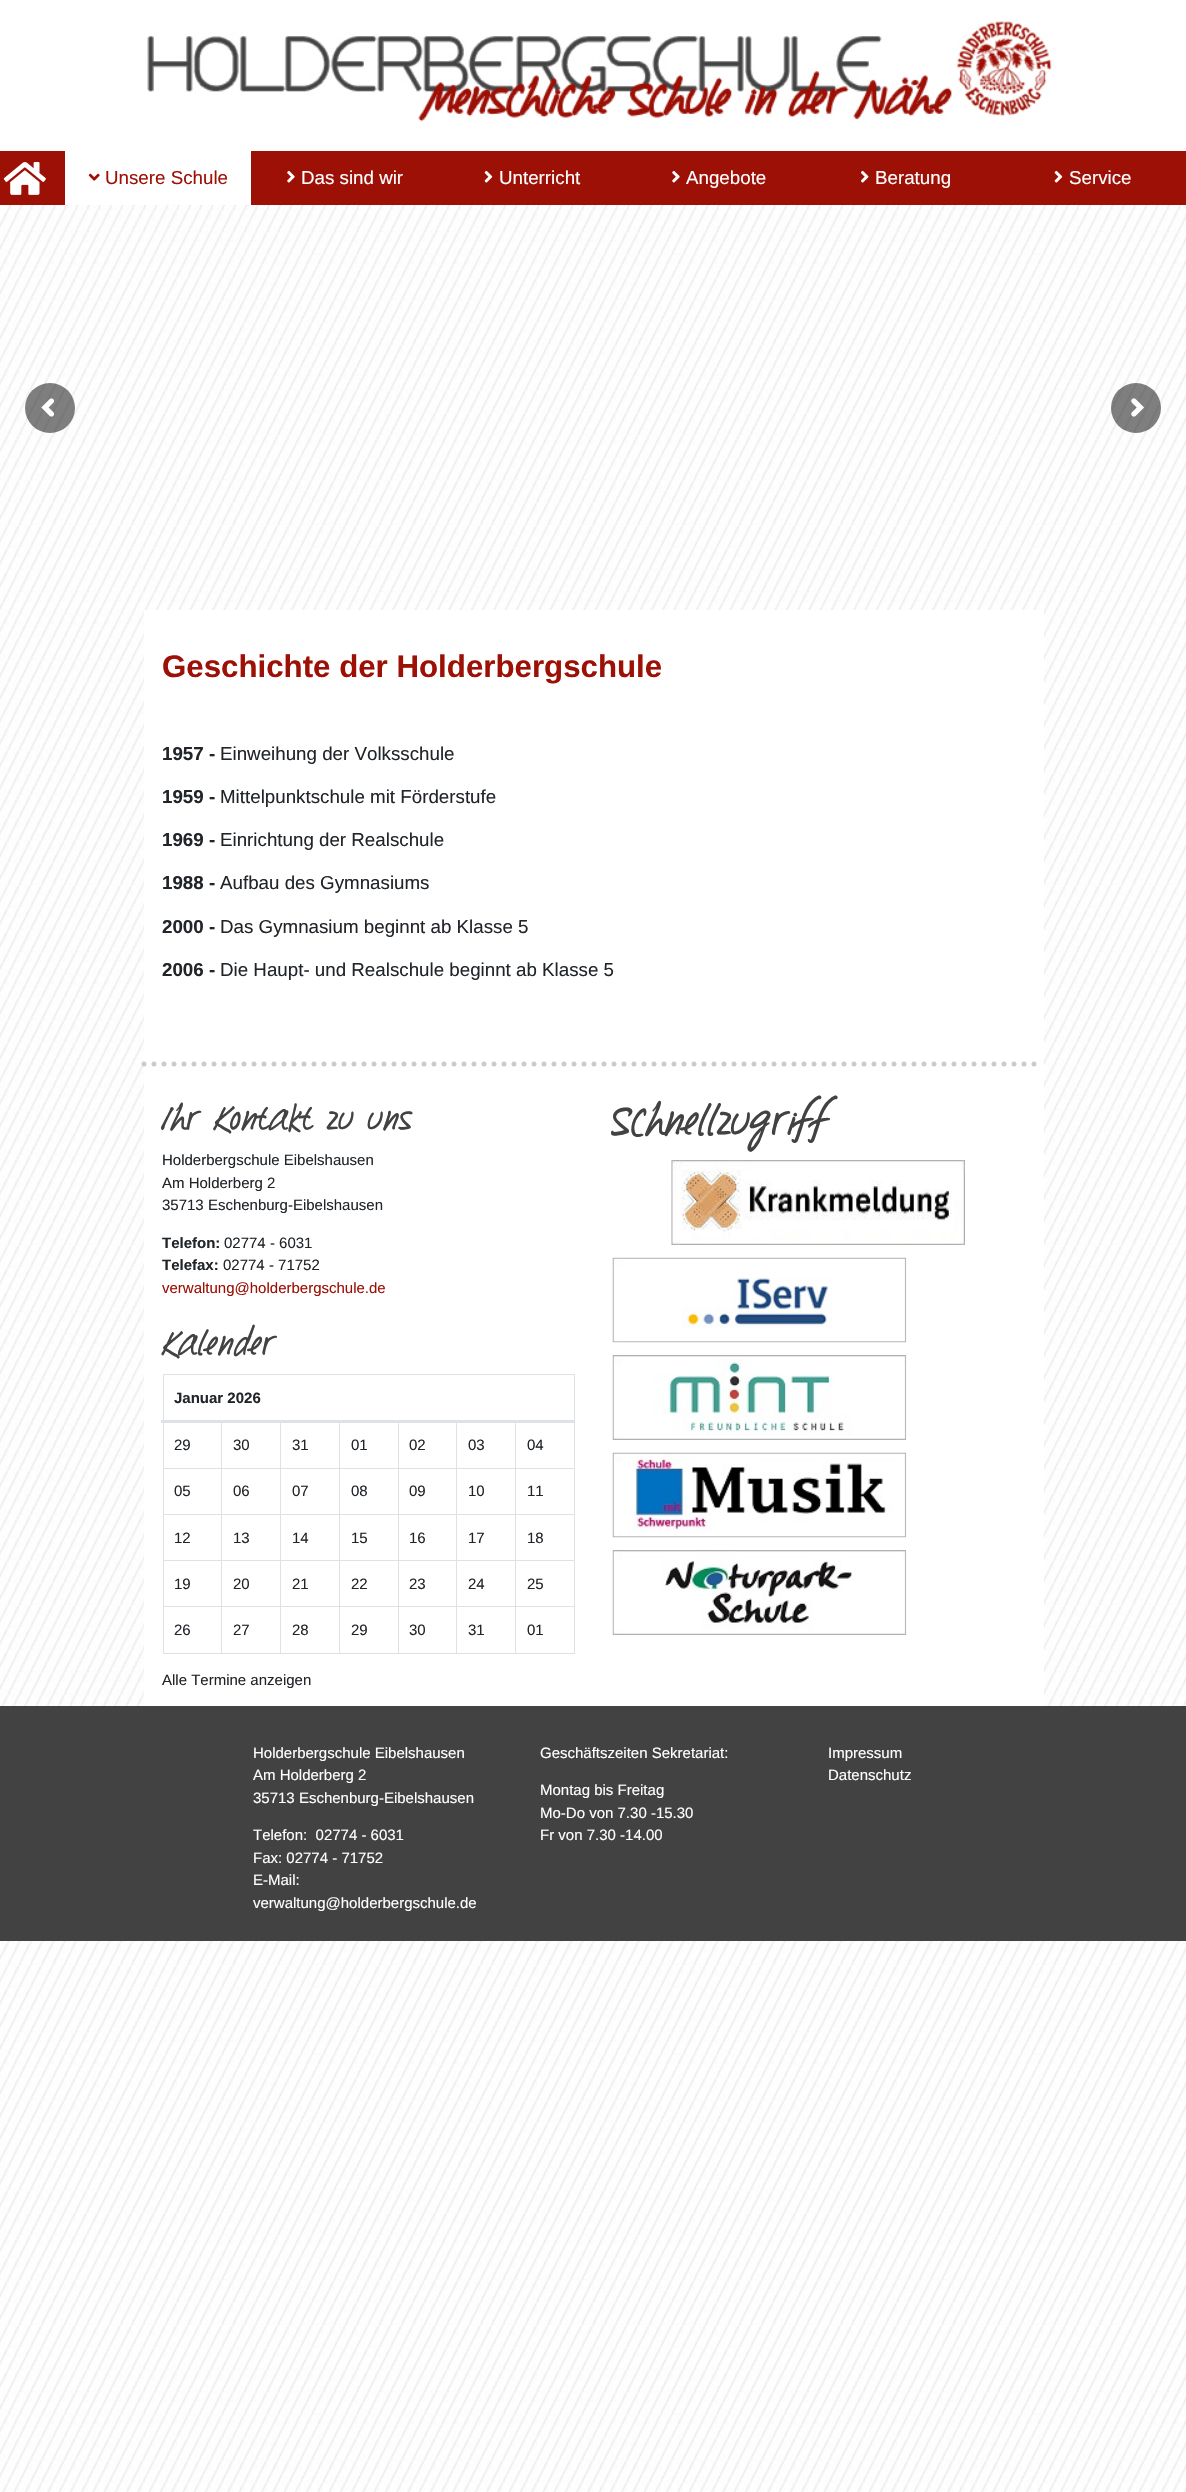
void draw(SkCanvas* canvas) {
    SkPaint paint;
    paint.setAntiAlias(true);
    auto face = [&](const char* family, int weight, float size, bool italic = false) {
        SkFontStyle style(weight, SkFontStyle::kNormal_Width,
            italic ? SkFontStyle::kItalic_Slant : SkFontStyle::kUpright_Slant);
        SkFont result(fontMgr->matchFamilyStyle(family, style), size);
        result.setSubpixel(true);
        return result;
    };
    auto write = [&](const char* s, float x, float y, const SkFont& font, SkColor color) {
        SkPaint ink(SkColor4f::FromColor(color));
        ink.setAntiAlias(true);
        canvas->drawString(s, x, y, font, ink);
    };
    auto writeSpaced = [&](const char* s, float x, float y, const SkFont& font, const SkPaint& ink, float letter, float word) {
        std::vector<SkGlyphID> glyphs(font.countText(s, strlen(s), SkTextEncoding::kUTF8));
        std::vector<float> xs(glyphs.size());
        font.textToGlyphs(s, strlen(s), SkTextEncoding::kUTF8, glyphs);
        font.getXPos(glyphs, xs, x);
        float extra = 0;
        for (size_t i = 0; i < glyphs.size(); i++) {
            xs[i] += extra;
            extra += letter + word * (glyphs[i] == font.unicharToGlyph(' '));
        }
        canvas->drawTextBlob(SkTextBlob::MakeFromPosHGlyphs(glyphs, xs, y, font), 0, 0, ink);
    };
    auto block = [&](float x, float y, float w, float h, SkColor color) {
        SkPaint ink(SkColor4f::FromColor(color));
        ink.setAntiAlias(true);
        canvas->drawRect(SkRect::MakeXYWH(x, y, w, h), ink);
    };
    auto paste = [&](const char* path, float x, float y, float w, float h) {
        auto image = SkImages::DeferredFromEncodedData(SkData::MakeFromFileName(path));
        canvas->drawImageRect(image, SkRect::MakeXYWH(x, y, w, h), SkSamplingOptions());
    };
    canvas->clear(SK_ColorWHITE);
    paste("pic1.png", 0, 205, 1186, 2287);
    paste("pic2.png", 147, 21, 905, 101);
    block(0, 151, 1186, 54, SkColorSetRGB(157, 16, 6));
    paste("pic3.png", 3, 162, 43, 33);
    block(65, 151, 186, 54, SK_ColorWHITE);
    paste("pic4.png", 88, 173, 12, 8);
    auto kFont1 = face("Liberation Sans", 400, 18.75f);
    write("Unsere Schule", 105, 184, kFont1, SkColorSetRGB(157, 16, 6));
    paste("pic5.png", 287, 170, 8, 13);
    write("Das sind wir", 301, 184, kFont1, SK_ColorWHITE);
    paste("pic6.png", 484, 170, 9, 13);
    write("Unterricht", 499, 184, kFont1, SK_ColorWHITE);
    paste("pic5.png", 672, 170, 8, 13);
    write("Angebote", 686, 184, kFont1, SK_ColorWHITE);
    paste("pic7.png", 861, 170, 8, 13);
    write("Beratung", 875, 184, kFont1, SK_ColorWHITE);
    paste("pic6.png", 1054, 170, 9, 13);
    write("Service", 1069, 184, kFont1, SK_ColorWHITE);
    paint.setColor(SkColorSetARGB(128, 0, 0, 0));
    canvas->drawCircle(50, 408, 25, paint);
    paste("pic8.png", 41, 398, 13, 19);
    canvas->drawCircle(1136, 408, 25, paint);
    paste("pic9.png", 1131, 398, 13, 19);
    block(144, 610, 900, 1096, SK_ColorWHITE);
    paint.setStyle(SkPaint::kStroke_Style);
    paint.setStrokeWidth(5);
    paint.setStrokeCap(SkPaint::kRound_Cap);
    paint.setColor(SkColorSetRGB(204, 204, 204));
    paint.setPathEffect(SkDashPathEffect::Make({{0, 10}}, 0));
    canvas->drawPath(SkPathBuilder().moveTo(144, 1064).lineTo(1044, 1064).detach(), paint);
    paint.setPathEffect(nullptr);
    auto kFont2 = face("Liberation Sans", 700, 31.25f);
    write("Geschichte der Holderbergschule", 162, 677, kFont2, SkColorSetRGB(157, 16, 6));
    auto kFont3 = face("Liberation Sans", 700, 18.75f);
    write("1957 -", 162, 760, kFont3, SkColorSetRGB(33, 37, 41));
    write("Einweihung der Volksschule", 220, 760, kFont1, SkColorSetRGB(33, 37, 41));
    write("1959 -", 162, 803, kFont3, SkColorSetRGB(33, 37, 41));
    write("Mittelpunktschule mit Förderstufe", 220, 803, kFont1, SkColorSetRGB(33, 37, 41));
    write("1969 -", 162, 846, kFont3, SkColorSetRGB(33, 37, 41));
    write("Einrichtung der Realschule", 220, 846, kFont1, SkColorSetRGB(33, 37, 41));
    write("1988 -", 162, 889, kFont3, SkColorSetRGB(33, 37, 41));
    write("Aufbau des Gymnasiums", 220, 889, kFont1, SkColorSetRGB(33, 37, 41));
    write("2000 -", 162, 933, kFont3, SkColorSetRGB(33, 37, 41));
    write("Das Gymnasium beginnt ab Klasse 5", 220, 933, kFont1, SkColorSetRGB(33, 37, 41));
    write("2006 -", 162, 976, kFont3, SkColorSetRGB(33, 37, 41));
    write("Die Haupt- und Realschule beginnt ab Klasse 5", 220, 976, kFont1, SkColorSetRGB(33, 37, 41));
    auto kFont4 = face("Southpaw", 700, 30);
    paint.setStyle(SkPaint::kFill_Style);
    paint.setColor(SkColorSetRGB(66, 66, 66));
    writeSpaced("Ihr Kontakt zu uns", 162, 1129, kFont4, paint, 2.5f, 0);
    auto kFont5 = face("Liberation Sans", 400, 15);
    write("Holderbergschule Eibelshausen", 162, 1165, kFont5, SkColorSetRGB(33, 37, 41));
    write("Am Holderberg 2", 162, 1188, kFont5, SkColorSetRGB(33, 37, 41));
    write("35713 Eschenburg-Eibelshausen", 162, 1210, kFont5, SkColorSetRGB(33, 37, 41));
    auto kFont6 = face("Liberation Sans", 700, 15);
    write("Telefon:", 162, 1248, kFont6, SkColorSetRGB(33, 37, 41));
    write("02774 - 6031", 224, 1248, kFont5, SkColorSetRGB(33, 37, 41));
    write("Telefax:", 162, 1270, kFont6, SkColorSetRGB(33, 37, 41));
    write("02774 - 71752", 223, 1270, kFont5, SkColorSetRGB(33, 37, 41));
    write("verwaltung@holderbergschule.de", 162, 1293, kFont5, SkColorSetRGB(157, 16, 6));
    writeSpaced("Kalender", 162, 1354, kFont4, paint, 2.5f, 0);
    block(163, 1374, 412, 1, SkColorSetRGB(222, 226, 230));
    block(574, 1374, 1, 280, SkColorSetRGB(222, 226, 230));
    block(163, 1653, 412, 1, SkColorSetRGB(222, 226, 230));
    block(163, 1374, 1, 280, SkColorSetRGB(222, 226, 230));
    block(515, 1606, 1, 48, SkColorSetRGB(222, 226, 230));
    block(515, 1606, 60, 1, SkColorSetRGB(222, 226, 230));
    block(515, 1560, 1, 48, SkColorSetRGB(222, 226, 230));
    block(515, 1560, 60, 1, SkColorSetRGB(222, 226, 230));
    block(515, 1514, 1, 47, SkColorSetRGB(222, 226, 230));
    block(515, 1514, 60, 1, SkColorSetRGB(222, 226, 230));
    block(515, 1468, 1, 47, SkColorSetRGB(222, 226, 230));
    block(515, 1468, 60, 1, SkColorSetRGB(222, 226, 230));
    block(515, 1421, 1, 48, SkColorSetRGB(222, 226, 230));
    block(456, 1606, 1, 48, SkColorSetRGB(222, 226, 230));
    block(456, 1606, 60, 1, SkColorSetRGB(222, 226, 230));
    block(456, 1560, 1, 48, SkColorSetRGB(222, 226, 230));
    block(456, 1560, 60, 1, SkColorSetRGB(222, 226, 230));
    block(456, 1514, 1, 47, SkColorSetRGB(222, 226, 230));
    block(456, 1514, 60, 1, SkColorSetRGB(222, 226, 230));
    block(456, 1468, 1, 47, SkColorSetRGB(222, 226, 230));
    block(456, 1468, 60, 1, SkColorSetRGB(222, 226, 230));
    block(456, 1421, 1, 48, SkColorSetRGB(222, 226, 230));
    block(398, 1606, 1, 48, SkColorSetRGB(222, 226, 230));
    block(398, 1606, 60, 1, SkColorSetRGB(222, 226, 230));
    block(398, 1560, 1, 48, SkColorSetRGB(222, 226, 230));
    block(398, 1560, 60, 1, SkColorSetRGB(222, 226, 230));
    block(398, 1514, 1, 47, SkColorSetRGB(222, 226, 230));
    block(398, 1514, 60, 1, SkColorSetRGB(222, 226, 230));
    block(398, 1468, 1, 47, SkColorSetRGB(222, 226, 230));
    block(398, 1468, 60, 1, SkColorSetRGB(222, 226, 230));
    block(398, 1421, 1, 48, SkColorSetRGB(222, 226, 230));
    block(339, 1606, 1, 48, SkColorSetRGB(222, 226, 230));
    block(339, 1606, 60, 1, SkColorSetRGB(222, 226, 230));
    block(339, 1560, 1, 48, SkColorSetRGB(222, 226, 230));
    block(339, 1560, 60, 1, SkColorSetRGB(222, 226, 230));
    block(339, 1514, 1, 47, SkColorSetRGB(222, 226, 230));
    block(339, 1514, 60, 1, SkColorSetRGB(222, 226, 230));
    block(339, 1468, 1, 47, SkColorSetRGB(222, 226, 230));
    block(339, 1468, 60, 1, SkColorSetRGB(222, 226, 230));
    block(339, 1421, 1, 48, SkColorSetRGB(222, 226, 230));
    block(280, 1606, 1, 48, SkColorSetRGB(222, 226, 230));
    block(280, 1606, 60, 1, SkColorSetRGB(222, 226, 230));
    block(280, 1560, 1, 48, SkColorSetRGB(222, 226, 230));
    block(280, 1560, 60, 1, SkColorSetRGB(222, 226, 230));
    block(280, 1514, 1, 47, SkColorSetRGB(222, 226, 230));
    block(280, 1514, 60, 1, SkColorSetRGB(222, 226, 230));
    block(280, 1468, 1, 47, SkColorSetRGB(222, 226, 230));
    block(280, 1468, 60, 1, SkColorSetRGB(222, 226, 230));
    block(280, 1421, 1, 48, SkColorSetRGB(222, 226, 230));
    block(221, 1606, 1, 48, SkColorSetRGB(222, 226, 230));
    block(221, 1606, 60, 1, SkColorSetRGB(222, 226, 230));
    block(221, 1560, 1, 48, SkColorSetRGB(222, 226, 230));
    block(221, 1560, 60, 1, SkColorSetRGB(222, 226, 230));
    block(221, 1514, 1, 47, SkColorSetRGB(222, 226, 230));
    block(221, 1514, 60, 1, SkColorSetRGB(222, 226, 230));
    block(221, 1468, 1, 47, SkColorSetRGB(222, 226, 230));
    block(221, 1468, 60, 1, SkColorSetRGB(222, 226, 230));
    block(221, 1421, 1, 48, SkColorSetRGB(222, 226, 230));
    block(161, 1420, 414, 3, SkColorSetRGB(222, 226, 230));
    write("Januar 2026", 174, 1403, kFont6, SkColorSetRGB(33, 37, 41));
    block(163, 1468, 60, 1, SkColorSetRGB(222, 226, 230));
    write("29", 174, 1450, kFont5, SkColorSetRGB(33, 37, 41));
    write("30", 233, 1450, kFont5, SkColorSetRGB(33, 37, 41));
    write("31", 292, 1450, kFont5, SkColorSetRGB(33, 37, 41));
    write("01", 351, 1450, kFont5, SkColorSetRGB(33, 37, 41));
    write("02", 409, 1450, kFont5, SkColorSetRGB(33, 37, 41));
    write("03", 468, 1450, kFont5, SkColorSetRGB(33, 37, 41));
    write("04", 527, 1450, kFont5, SkColorSetRGB(33, 37, 41));
    block(163, 1514, 60, 1, SkColorSetRGB(222, 226, 230));
    write("05", 174, 1496, kFont5, SkColorSetRGB(33, 37, 41));
    write("06", 233, 1496, kFont5, SkColorSetRGB(33, 37, 41));
    write("07", 292, 1496, kFont5, SkColorSetRGB(33, 37, 41));
    write("08", 351, 1496, kFont5, SkColorSetRGB(33, 37, 41));
    write("09", 409, 1496, kFont5, SkColorSetRGB(33, 37, 41));
    write("10", 468, 1496, kFont5, SkColorSetRGB(33, 37, 41));
    write("11", 527, 1496, kFont5, SkColorSetRGB(33, 37, 41));
    block(163, 1560, 60, 1, SkColorSetRGB(222, 226, 230));
    write("12", 174, 1543, kFont5, SkColorSetRGB(33, 37, 41));
    write("13", 233, 1543, kFont5, SkColorSetRGB(33, 37, 41));
    write("14", 292, 1543, kFont5, SkColorSetRGB(33, 37, 41));
    write("15", 351, 1543, kFont5, SkColorSetRGB(33, 37, 41));
    write("16", 409, 1543, kFont5, SkColorSetRGB(33, 37, 41));
    write("17", 468, 1543, kFont5, SkColorSetRGB(33, 37, 41));
    write("18", 527, 1543, kFont5, SkColorSetRGB(33, 37, 41));
    block(163, 1606, 60, 1, SkColorSetRGB(222, 226, 230));
    write("19", 174, 1589, kFont5, SkColorSetRGB(33, 37, 41));
    write("20", 233, 1589, kFont5, SkColorSetRGB(33, 37, 41));
    write("21", 292, 1589, kFont5, SkColorSetRGB(33, 37, 41));
    write("22", 351, 1589, kFont5, SkColorSetRGB(33, 37, 41));
    write("23", 409, 1589, kFont5, SkColorSetRGB(33, 37, 41));
    write("24", 468, 1589, kFont5, SkColorSetRGB(33, 37, 41));
    write("25", 527, 1589, kFont5, SkColorSetRGB(33, 37, 41));
    write("26", 174, 1635, kFont5, SkColorSetRGB(33, 37, 41));
    write("27", 233, 1635, kFont5, SkColorSetRGB(33, 37, 41));
    write("28", 292, 1635, kFont5, SkColorSetRGB(33, 37, 41));
    write("29", 351, 1635, kFont5, SkColorSetRGB(33, 37, 41));
    write("30", 409, 1635, kFont5, SkColorSetRGB(33, 37, 41));
    write("31", 468, 1635, kFont5, SkColorSetRGB(33, 37, 41));
    write("01", 527, 1635, kFont5, SkColorSetRGB(33, 37, 41));
    write("Alle Termine anzeigen", 162, 1685, kFont5, SkColorSetRGB(33, 37, 41));
    auto kFont7 = face("Southpaw", 700, 37.5f);
    writeSpaced("Schnellzugriff", 612, 1134, kFont7, paint, 2.5f, 0);
    paste("pic10.png", 671, 1160, 294, 85);
    paste("pic11.png", 612, 1257, 295, 86);
    paste("pic12.png", 612, 1355, 295, 85);
    paste("pic13.png", 612, 1452, 295, 86);
    paste("pic14.png", 612, 1550, 295, 85);
    block(0, 1706, 1186, 235, SkColorSetRGB(66, 66, 66));
    write("Holderbergschule Eibelshausen", 253, 1758, kFont5, SK_ColorWHITE);
    write("Am Holderberg 2", 253, 1780, kFont5, SK_ColorWHITE);
    write("35713 Eschenburg-Eibelshausen", 253, 1803, kFont5, SK_ColorWHITE);
    write("Telefon:  02774 - 6031", 253, 1840, kFont5, SK_ColorWHITE);
    write("Fax: 02774 - 71752", 253, 1863, kFont5, SK_ColorWHITE);
    write("E-Mail:", 253, 1885, kFont5, SK_ColorWHITE);
    write("verwaltung@holderbergschule.de", 253, 1908, kFont5, SK_ColorWHITE);
    write("Geschäftszeiten Sekretariat:", 540, 1758, kFont5, SK_ColorWHITE);
    write("Montag bis Freitag", 540, 1795, kFont5, SK_ColorWHITE);
    write("Mo-Do von 7.30 -15.30", 540, 1818, kFont5, SK_ColorWHITE);
    write("Fr von 7.30 -14.00", 540, 1840, kFont5, SK_ColorWHITE);
    write("Impressum", 828, 1758, kFont5, SK_ColorWHITE);
    write("Datenschutz", 828, 1780, kFont5, SK_ColorWHITE);
}
